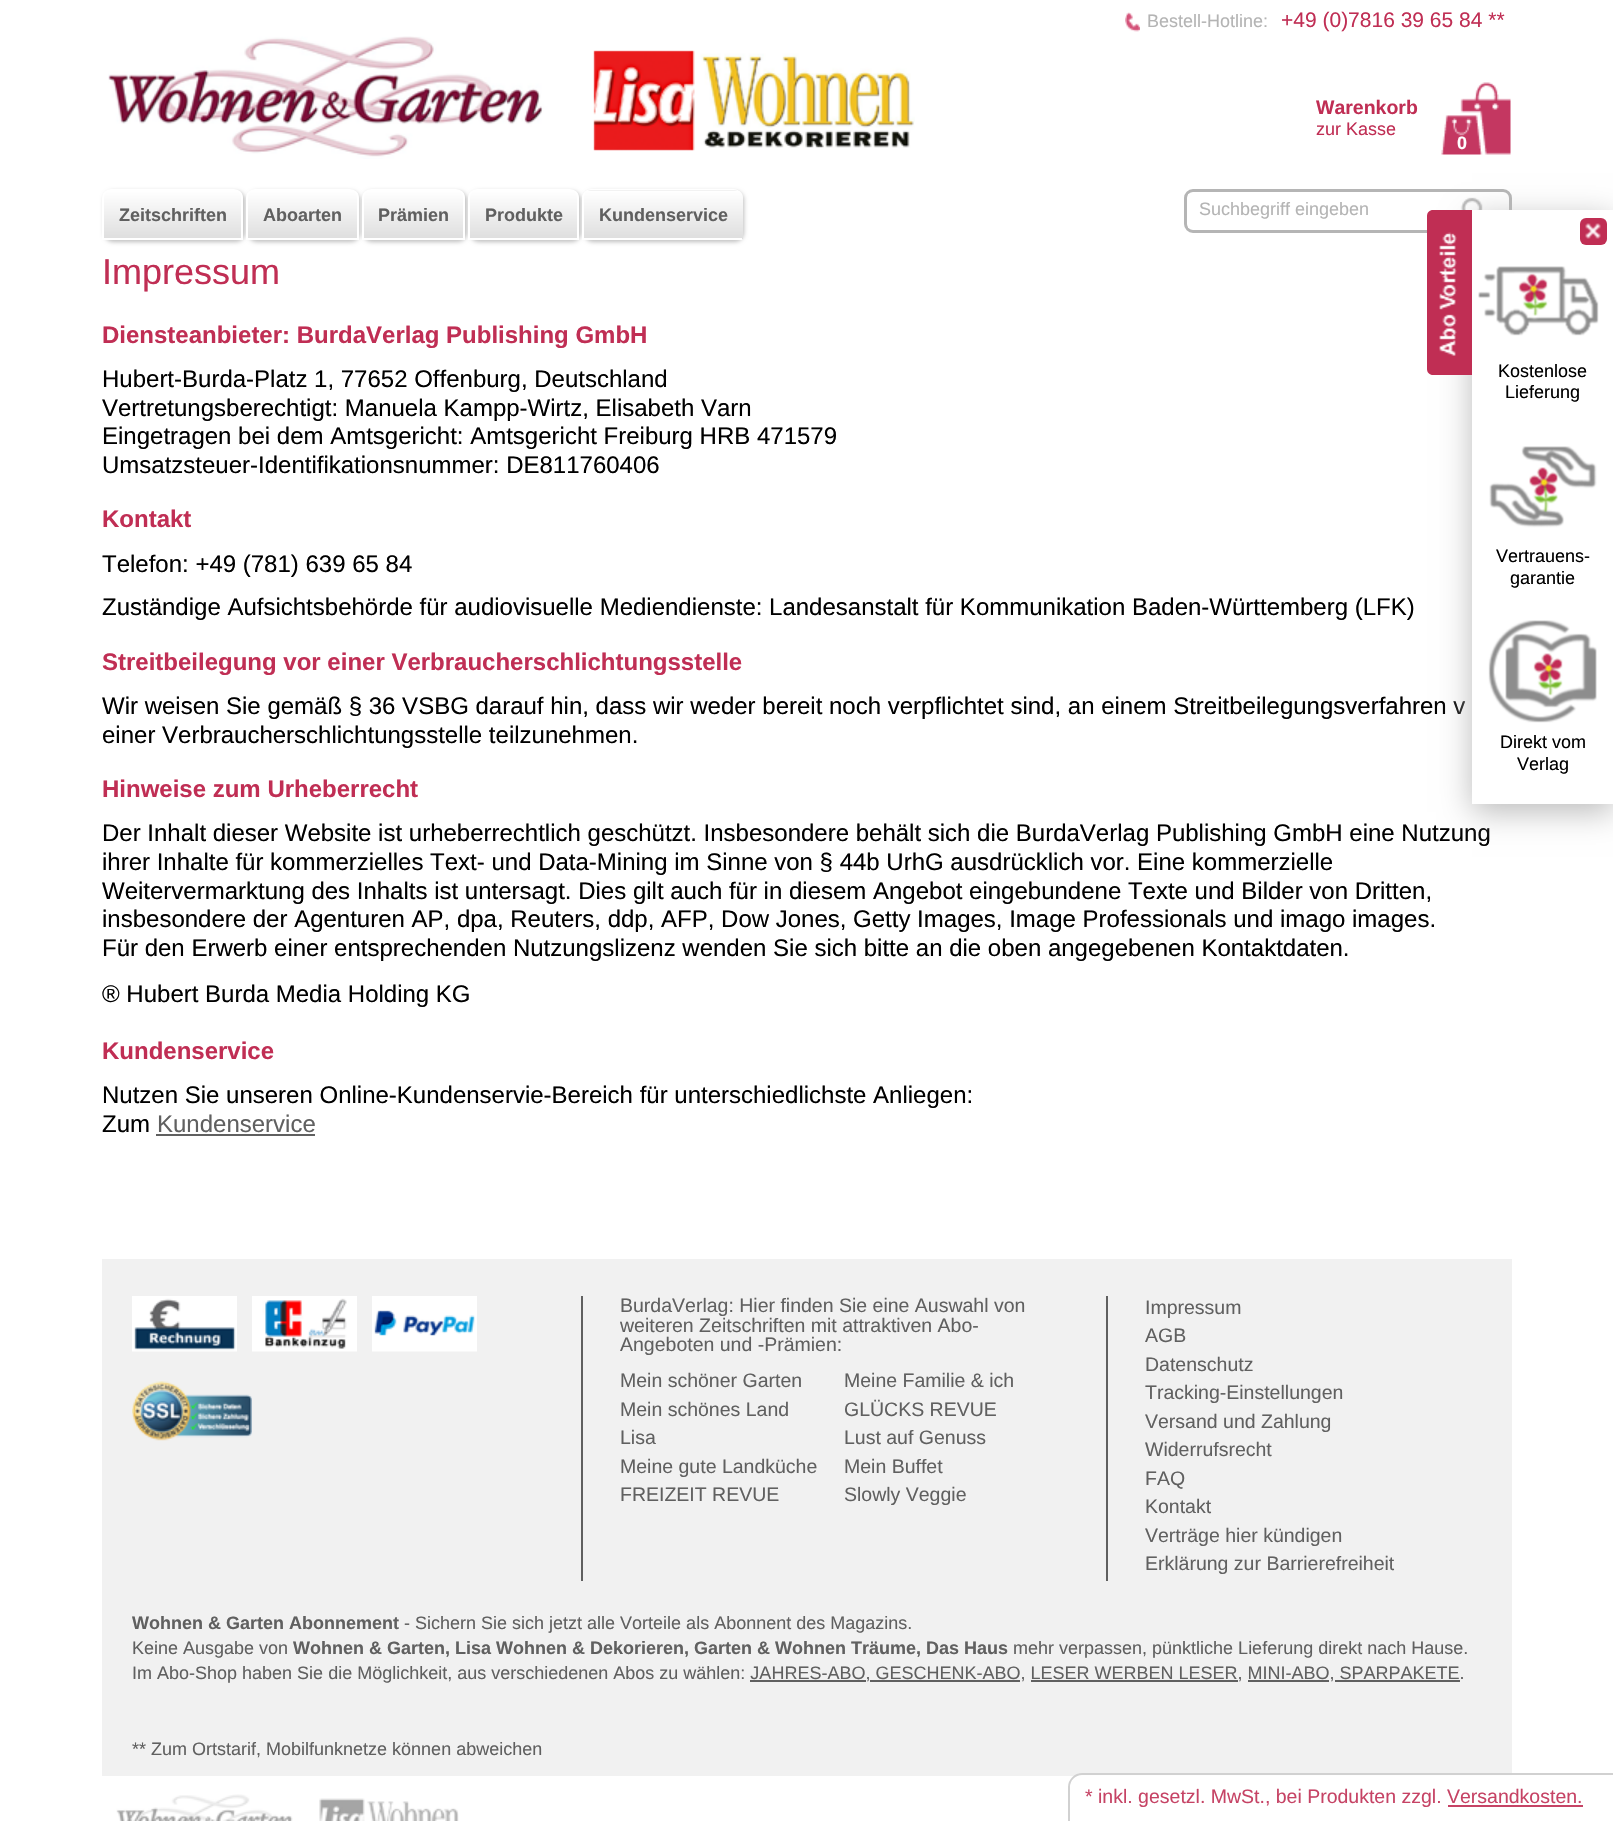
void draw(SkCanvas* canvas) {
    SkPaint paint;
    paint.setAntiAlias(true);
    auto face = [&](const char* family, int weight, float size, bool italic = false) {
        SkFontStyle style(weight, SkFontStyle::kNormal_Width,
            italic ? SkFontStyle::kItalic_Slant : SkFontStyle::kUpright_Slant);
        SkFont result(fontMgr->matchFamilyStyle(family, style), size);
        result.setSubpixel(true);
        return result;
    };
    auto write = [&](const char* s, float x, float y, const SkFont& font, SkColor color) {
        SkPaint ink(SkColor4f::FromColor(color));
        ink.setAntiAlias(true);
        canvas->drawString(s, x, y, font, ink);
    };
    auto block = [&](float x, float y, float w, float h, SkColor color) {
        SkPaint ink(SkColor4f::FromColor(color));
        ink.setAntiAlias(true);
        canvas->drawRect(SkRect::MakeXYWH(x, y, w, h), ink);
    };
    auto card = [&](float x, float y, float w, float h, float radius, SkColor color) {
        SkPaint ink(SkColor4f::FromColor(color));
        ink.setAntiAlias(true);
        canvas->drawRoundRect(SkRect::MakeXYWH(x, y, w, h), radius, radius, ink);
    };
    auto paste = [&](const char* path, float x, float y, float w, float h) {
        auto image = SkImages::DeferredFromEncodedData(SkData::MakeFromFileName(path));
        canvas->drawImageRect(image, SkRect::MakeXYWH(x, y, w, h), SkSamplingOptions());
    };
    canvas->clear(SK_ColorWHITE);
    paste("pic1.png", 1125, 12, 15, 20);
    auto kFont1 = face("Liberation Sans", 400, 18);
    write("Bestell-Hotline:", 1147, 27, kFont1, SkColorSetRGB(180, 180, 180));
    auto kFont2 = face("Liberation Sans", 400, 21);
    write("+49 (0)7816 39 65 84 **", 1281, 27, kFont2, SkColorSetRGB(192, 46, 84));
    paste("pic2.png", 108, 36, 807, 123);
    paste("pic3.png", 1441, 82, 70, 73);
    auto kFont3 = face("Liberation Sans", 700, 19.5f);
    write("Warenkorb", 1316, 114, kFont3, SkColorSetRGB(192, 46, 84));
    write("zur Kasse", 1316, 135, kFont1, SkColorSetRGB(192, 46, 84));
    auto kFont4 = face("Liberation Sans", 700, 18);
    write("0", 1457, 149, kFont4, SK_ColorWHITE);
    paint.setColor(SkColorSetARGB(64, 0, 0, 0));
    paint.setMaskFilter(SkMaskFilter::MakeBlur(kNormal_SkBlurStyle, 2));
    canvas->drawRoundRect(SkRect::MakeXYWH(104, 191, 141, 51), 9, 9, paint);
    paint.setMaskFilter(nullptr);
    canvas->save();
    canvas->clipPath(SkPathBuilder().moveTo(111, 189).lineTo(234, 189).cubicTo(239, 189, 243, 193, 243, 198).lineTo(243, 240).lineTo(102, 240).lineTo(102, 198).cubicTo(102, 193, 106, 189, 111, 189).close().detach(), true);
    {
        const SkColor colors[] = {SK_ColorWHITE, SkColorSetRGB(222, 222, 222)};
        const float stops[] = {0, 1};
        const SkPoint ends[] = {{173, 191}, {173, 239}};
        paint.setShader(SkGradientShader::MakeLinear(ends, colors, stops, 2, SkTileMode::kClamp));
        paint.setAlpha(255);
    }
    canvas->drawRect(SkRect::MakeXYWH(102, 191, 141, 47), paint);
    canvas->restore();
    paint.setStyle(SkPaint::kStroke_Style);
    paint.setStrokeWidth(2);
    paint.setShader(nullptr);
    paint.setColor(SK_ColorWHITE);
    canvas->drawPath(SkPathBuilder().moveTo(111, 190).lineTo(234, 190).cubicTo(238.5f, 190, 242, 193.5f, 242, 198).lineTo(242, 239).lineTo(103, 239).lineTo(103, 198).cubicTo(103, 193.5f, 106.5f, 190, 111, 190).close().detach(), paint);
    write("Zeitschriften", 119, 221, kFont4, SkColorSetRGB(96, 96, 96));
    paint.setStyle(SkPaint::kFill_Style);
    paint.setColor(SkColorSetARGB(64, 0, 0, 0));
    paint.setMaskFilter(SkMaskFilter::MakeBlur(kNormal_SkBlurStyle, 2));
    canvas->drawRoundRect(SkRect::MakeXYWH(248, 191, 112, 51), 9, 9, paint);
    paint.setMaskFilter(nullptr);
    canvas->save();
    canvas->clipPath(SkPathBuilder().moveTo(255, 189).lineTo(350, 189).cubicTo(355, 189, 359, 193, 359, 198).lineTo(359, 240).lineTo(246, 240).lineTo(246, 198).cubicTo(246, 193, 250, 189, 255, 189).close().detach(), true);
    {
        const SkColor colors[] = {SK_ColorWHITE, SkColorSetRGB(222, 222, 222)};
        const float stops[] = {0, 1};
        const SkPoint ends[] = {{302, 191}, {302, 239}};
        paint.setShader(SkGradientShader::MakeLinear(ends, colors, stops, 2, SkTileMode::kClamp));
        paint.setAlpha(255);
    }
    canvas->drawRect(SkRect::MakeXYWH(246, 191, 113, 47), paint);
    canvas->restore();
    paint.setStyle(SkPaint::kStroke_Style);
    paint.setShader(nullptr);
    paint.setColor(SK_ColorWHITE);
    canvas->drawPath(SkPathBuilder().moveTo(255, 190).lineTo(350, 190).cubicTo(354.5f, 190, 358, 193.5f, 358, 198).lineTo(358, 239).lineTo(247, 239).lineTo(247, 198).cubicTo(247, 193.5f, 250.5f, 190, 255, 190).close().detach(), paint);
    write("Aboarten", 263, 221, kFont4, SkColorSetRGB(96, 96, 96));
    paint.setStyle(SkPaint::kFill_Style);
    paint.setColor(SkColorSetARGB(64, 0, 0, 0));
    paint.setMaskFilter(SkMaskFilter::MakeBlur(kNormal_SkBlurStyle, 2));
    canvas->drawRoundRect(SkRect::MakeXYWH(363, 191, 104, 51), 9, 9, paint);
    paint.setMaskFilter(nullptr);
    canvas->save();
    canvas->clipPath(SkPathBuilder().moveTo(371, 189).lineTo(456, 189).cubicTo(461, 189, 465, 193, 465, 198).lineTo(465, 240).lineTo(362, 240).lineTo(362, 198).cubicTo(362, 193, 366, 189, 371, 189).close().detach(), true);
    {
        const SkColor colors[] = {SK_ColorWHITE, SkColorSetRGB(222, 222, 222)};
        const float stops[] = {0, 1};
        const SkPoint ends[] = {{413, 191}, {413, 239}};
        paint.setShader(SkGradientShader::MakeLinear(ends, colors, stops, 2, SkTileMode::kClamp));
        paint.setAlpha(255);
    }
    canvas->drawRect(SkRect::MakeXYWH(362, 191, 103, 47), paint);
    canvas->restore();
    paint.setStyle(SkPaint::kStroke_Style);
    paint.setShader(nullptr);
    paint.setColor(SK_ColorWHITE);
    canvas->drawPath(SkPathBuilder().moveTo(371, 190).lineTo(456, 190).cubicTo(460.5f, 190, 464, 193.5f, 464, 198).lineTo(464, 239).lineTo(363, 239).lineTo(363, 198).cubicTo(363, 193.5f, 366.5f, 190, 371, 190).close().detach(), paint);
    write("Prämien", 378, 221, kFont4, SkColorSetRGB(96, 96, 96));
    paint.setStyle(SkPaint::kFill_Style);
    paint.setColor(SkColorSetARGB(64, 0, 0, 0));
    paint.setMaskFilter(SkMaskFilter::MakeBlur(kNormal_SkBlurStyle, 2));
    canvas->drawRoundRect(SkRect::MakeXYWH(470, 191, 111, 51), 9, 9, paint);
    paint.setMaskFilter(nullptr);
    canvas->save();
    canvas->clipPath(SkPathBuilder().moveTo(477, 189).lineTo(570, 189).cubicTo(575, 189, 579, 193, 579, 198).lineTo(579, 240).lineTo(468, 240).lineTo(468, 198).cubicTo(468, 193, 472, 189, 477, 189).close().detach(), true);
    {
        const SkColor colors[] = {SK_ColorWHITE, SkColorSetRGB(222, 222, 222)};
        const float stops[] = {0, 1};
        const SkPoint ends[] = {{524, 191}, {524, 239}};
        paint.setShader(SkGradientShader::MakeLinear(ends, colors, stops, 2, SkTileMode::kClamp));
        paint.setAlpha(255);
    }
    canvas->drawRect(SkRect::MakeXYWH(468, 191, 111, 47), paint);
    canvas->restore();
    paint.setStyle(SkPaint::kStroke_Style);
    paint.setShader(nullptr);
    paint.setColor(SK_ColorWHITE);
    canvas->drawPath(SkPathBuilder().moveTo(477, 190).lineTo(570, 190).cubicTo(574.5f, 190, 578, 193.5f, 578, 198).lineTo(578, 239).lineTo(469, 239).lineTo(469, 198).cubicTo(469, 193.5f, 472.5f, 190, 477, 190).close().detach(), paint);
    write("Produkte", 485, 221, kFont4, SkColorSetRGB(96, 96, 96));
    paint.setStyle(SkPaint::kFill_Style);
    paint.setColor(SkColorSetARGB(64, 0, 0, 0));
    paint.setMaskFilter(SkMaskFilter::MakeBlur(kNormal_SkBlurStyle, 2));
    canvas->drawRoundRect(SkRect::MakeXYWH(584, 191, 160, 51), 9, 9, paint);
    paint.setMaskFilter(nullptr);
    paint.setColor(SkColorSetRGB(242, 242, 242));
    canvas->drawPath(SkPathBuilder().moveTo(591, 189).lineTo(734, 189).cubicTo(739, 189, 743, 193, 743, 198).lineTo(743, 240).lineTo(582, 240).lineTo(582, 198).cubicTo(582, 193, 586, 189, 591, 189).close().detach(), paint);
    canvas->save();
    canvas->clipPath(SkPathBuilder().moveTo(591, 189).lineTo(734, 189).cubicTo(739, 189, 743, 193, 743, 198).lineTo(743, 240).lineTo(582, 240).lineTo(582, 198).cubicTo(582, 193, 586, 189, 591, 189).close().detach(), true);
    {
        const SkColor colors[] = {SK_ColorWHITE, SkColorSetRGB(222, 222, 222)};
        const float stops[] = {0, 1};
        const SkPoint ends[] = {{663, 191}, {663, 239}};
        paint.setShader(SkGradientShader::MakeLinear(ends, colors, stops, 2, SkTileMode::kClamp));
        paint.setAlpha(255);
    }
    canvas->drawRect(SkRect::MakeXYWH(582, 191, 161, 48), paint);
    canvas->restore();
    paint.setShader(nullptr);
    paint.setColor(SK_ColorWHITE);
    canvas->drawPath(SkPathBuilder(SkPathFillType::kEvenOdd).moveTo(591, 189).lineTo(734, 189).cubicTo(738, 189, 742, 193, 742, 198).lineTo(742, 240).lineTo(582, 240).lineTo(582, 198).cubicTo(582, 193, 586, 189, 591, 189).close().moveTo(591, 190).lineTo(734, 190).cubicTo(738, 190, 742, 194, 742, 198).lineTo(742, 238).lineTo(584, 238).lineTo(584, 198).cubicTo(584, 194, 587, 190, 591, 190).close().detach(), paint);
    write("Kundenservice", 599, 221, kFont4, SkColorSetRGB(96, 96, 96));
    paint.setStyle(SkPaint::kStroke_Style);
    paint.setStrokeWidth(3);
    paint.setColor(SkColorSetRGB(181, 181, 181));
    canvas->drawRoundRect(SkRect::MakeXYWH(1185.5f, 190.5f, 325, 41), 7.5f, 7.5f, paint);
    block(1188, 194, 1, 34, SK_ColorWHITE);
    write("Suchbegriff eingeben", 1199, 215, kFont1, SkColorSetRGB(180, 180, 180));
    paste("pic4.png", 1460, 197, 23, 13);
    auto kFont5 = face("Liberation Sans", 400, 36);
    write("Impressum", 102, 284, kFont5, SkColorSetRGB(192, 46, 84));
    auto kFont6 = face("Liberation Sans", 700, 24);
    write("Diensteanbieter: BurdaVerlag Publishing GmbH", 102, 343, kFont6, SkColorSetRGB(192, 46, 84));
    auto kFont7 = face("Liberation Sans", 400, 24);
    write("Hubert-Burda-Platz 1, 77652 Offenburg, Deutschland", 102, 387, kFont7, SK_ColorBLACK);
    write("Vertretungsberechtigt: Manuela Kampp-Wirtz, Elisabeth Varn", 102, 416, kFont7, SK_ColorBLACK);
    write("Eingetragen bei dem Amtsgericht: Amtsgericht Freiburg HRB 471579", 102, 444, kFont7, SK_ColorBLACK);
    write("Umsatzsteuer-Identifikationsnummer: DE811760406", 102, 473, kFont7, SK_ColorBLACK);
    write("Kontakt", 102, 527, kFont6, SkColorSetRGB(192, 46, 84));
    write("Telefon: +49 (781) 639 65 84", 102, 572, kFont7, SK_ColorBLACK);
    write("Zuständige Aufsichtsbehörde für audiovisuelle Mediendienste: Landesanstalt für Kommunikation Baden-Württemberg (LFK)", 102, 615, kFont7, SK_ColorBLACK);
    write("Streitbeilegung vor einer Verbraucherschlichtungsstelle", 102, 670, kFont6, SkColorSetRGB(192, 46, 84));
    write("Wir weisen Sie gemäß § 36 VSBG darauf hin, dass wir weder bereit noch verpflichtet sind, an einem Streitbeilegungsverfahren v", 102, 714, kFont7, SK_ColorBLACK);
    write("einer Verbraucherschlichtungsstelle teilzunehmen.", 102, 743, kFont7, SK_ColorBLACK);
    write("Hinweise zum Urheberrecht", 102, 797, kFont6, SkColorSetRGB(192, 46, 84));
    write("Der Inhalt dieser Website ist urheberrechtlich geschützt. Insbesondere behält sich die BurdaVerlag Publishing GmbH eine Nutzung", 102, 841, kFont7, SK_ColorBLACK);
    write("ihrer Inhalte für kommerzielles Text- und Data-Mining im Sinne von § 44b UrhG ausdrücklich vor. Eine kommerzielle", 102, 870, kFont7, SK_ColorBLACK);
    write("Weitervermarktung des Inhalts ist untersagt. Dies gilt auch für in diesem Angebot eingebundene Texte und Bilder von Dritten,", 102, 899, kFont7, SK_ColorBLACK);
    write("insbesondere der Agenturen AP, dpa, Reuters, ddp, AFP, Dow Jones, Getty Images, Image Professionals und imago images.", 102, 927, kFont7, SK_ColorBLACK);
    write("Für den Erwerb einer entsprechenden Nutzungslizenz wenden Sie sich bitte an die oben angegebenen Kontaktdaten.", 102, 956, kFont7, SK_ColorBLACK);
    write("® Hubert Burda Media Holding KG", 102, 1002, kFont7, SK_ColorBLACK);
    write("Kundenservice", 102, 1059, kFont6, SkColorSetRGB(192, 46, 84));
    write("Nutzen Sie unseren Online-Kundenservie-Bereich für unterschiedlichste Anliegen:", 102, 1103, kFont7, SK_ColorBLACK);
    write("Zum", 102, 1132, kFont7, SK_ColorBLACK);
    write("Kundenservice", 157, 1132, kFont7, SkColorSetRGB(96, 96, 96));
    block(156, 1134, 159, 2, SkColorSetRGB(96, 96, 96));
    paint.setStyle(SkPaint::kFill_Style);
    paint.setColor(SkColorSetRGB(187, 187, 187));
    paint.setMaskFilter(SkMaskFilter::MakeBlur(kNormal_SkBlurStyle, 15));
    canvas->drawRect(SkRect::MakeXYWH(1472, 218, 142, 594), paint);
    paint.setMaskFilter(nullptr);
    block(1472, 210, 141, 594, SK_ColorWHITE);
    paint.setColor(SkColorSetRGB(192, 46, 84));
    canvas->drawPath(SkPathBuilder().moveTo(1433, 210).lineTo(1472, 210).lineTo(1472, 375).lineTo(1433, 375).cubicTo(1429.5f, 375, 1427, 372.5f, 1427, 369).lineTo(1427, 216).cubicTo(1427, 212.5f, 1429.5f, 210, 1433, 210).close().detach(), paint);
    paste("pic5.png", 1439, 232, 18, 124);
    card(1580, 218, 27, 27, 6, SkColorSetRGB(192, 46, 84));
    paste("pic6.png", 1585, 223, 16, 16);
    paste("pic7.png", 1478, 266, 121, 70);
    write("Kostenlose", 1498, 377, kFont1, SK_ColorBLACK);
    write("Lieferung", 1505, 398, kFont1, SK_ColorBLACK);
    paste("pic8.png", 1489, 446, 108, 82);
    write("Vertrauens-", 1496, 562, kFont1, SK_ColorBLACK);
    write("garantie", 1510, 584, kFont1, SK_ColorBLACK);
    paste("pic9.png", 1488, 620, 109, 103);
    write("Direkt vom", 1500, 748, kFont1, SK_ColorBLACK);
    write("Verlag", 1517, 770, kFont1, SK_ColorBLACK);
    block(102, 1259, 1410, 517, SkColorSetRGB(241, 241, 241));
    block(581, 1296, 2, 285, SkColorSetRGB(96, 96, 96));
    paste("pic10.png", 132, 1296, 105, 56);
    paste("pic11.png", 252, 1296, 105, 56);
    paste("pic12.png", 372, 1296, 105, 56);
    paste("pic13.png", 132, 1381, 120, 60);
    block(1106, 1296, 2, 285, SkColorSetRGB(96, 96, 96));
    auto kFont8 = face("Liberation Sans", 400, 19.5f);
    write("BurdaVerlag: Hier finden Sie eine Auswahl von", 620, 1312, kFont8, SkColorSetRGB(96, 96, 96));
    write("weiteren Zeitschriften mit attraktiven Abo-", 620, 1332, kFont8, SkColorSetRGB(96, 96, 96));
    write("Angeboten und -Prämien:", 620, 1351, kFont8, SkColorSetRGB(96, 96, 96));
    write("Mein schöner Garten", 620, 1387, kFont8, SkColorSetRGB(96, 96, 96));
    write("Mein schönes Land", 620, 1416, kFont8, SkColorSetRGB(96, 96, 96));
    write("Lisa", 620, 1444, kFont8, SkColorSetRGB(96, 96, 96));
    write("Meine gute Landküche", 620, 1473, kFont8, SkColorSetRGB(96, 96, 96));
    write("FREIZEIT REVUE", 620, 1501, kFont8, SkColorSetRGB(96, 96, 96));
    write("Meine Familie & ich", 844, 1387, kFont8, SkColorSetRGB(96, 96, 96));
    write("GLÜCKS REVUE", 844, 1416, kFont8, SkColorSetRGB(96, 96, 96));
    write("Lust auf Genuss", 844, 1444, kFont8, SkColorSetRGB(96, 96, 96));
    write("Mein Buffet", 844, 1473, kFont8, SkColorSetRGB(96, 96, 96));
    write("Slowly Veggie", 844, 1501, kFont8, SkColorSetRGB(96, 96, 96));
    write("Impressum", 1145, 1314, kFont8, SkColorSetRGB(96, 96, 96));
    write("AGB", 1145, 1342, kFont8, SkColorSetRGB(96, 96, 96));
    write("Datenschutz", 1145, 1371, kFont8, SkColorSetRGB(96, 96, 96));
    write("Tracking-Einstellungen", 1145, 1399, kFont8, SkColorSetRGB(96, 96, 96));
    write("Versand und Zahlung", 1145, 1428, kFont8, SkColorSetRGB(96, 96, 96));
    write("Widerrufsrecht", 1145, 1456, kFont8, SkColorSetRGB(96, 96, 96));
    write("FAQ", 1145, 1485, kFont8, SkColorSetRGB(96, 96, 96));
    write("Kontakt", 1145, 1513, kFont8, SkColorSetRGB(96, 96, 96));
    write("Verträge hier kündigen", 1145, 1542, kFont8, SkColorSetRGB(96, 96, 96));
    write("Erklärung zur Barrierefreiheit", 1145, 1570, kFont8, SkColorSetRGB(96, 96, 96));
    write("Wohnen & Garten Abonnement", 132, 1629, kFont4, SkColorSetRGB(96, 96, 96));
    write("- Sichern Sie sich jetzt alle Vorteile als Abonnent des Magazins.", 404, 1629, kFont1, SkColorSetRGB(96, 96, 96));
    write("Keine Ausgabe von", 132, 1654, kFont1, SkColorSetRGB(96, 96, 96));
    write("Wohnen & Garten, Lisa Wohnen & Dekorieren, Garten & Wohnen Träume, Das Haus", 293, 1654, kFont4, SkColorSetRGB(96, 96, 96));
    write("mehr verpassen, pünktliche Lieferung direkt nach Hause.", 1013, 1654, kFont1, SkColorSetRGB(96, 96, 96));
    write("Im Abo-Shop haben Sie die Möglichkeit, aus verschiedenen Abos zu wählen: JAHRES-ABO, GESCHENK-ABO, LESER WERBEN LESER, MINI-ABO, SPARPAKETE.", 132, 1679, kFont1, SkColorSetRGB(96, 96, 96));
    block(750, 1680, 116, 2, SkColorSetRGB(96, 96, 96));
    block(870, 1680, 150, 2, SkColorSetRGB(96, 96, 96));
    block(1031, 1680, 207, 2, SkColorSetRGB(96, 96, 96));
    block(1248, 1680, 81, 2, SkColorSetRGB(96, 96, 96));
    block(1335, 1680, 125, 2, SkColorSetRGB(96, 96, 96));
    write("** Zum Ortstarif, Mobilfunknetze können abweichen", 132, 1755, kFont1, SkColorSetRGB(96, 96, 96));
    paste("pic14.png", 116, 1794, 343, 27);
    paint.setColor(SkColorSetARGB(230, 255, 255, 255));
    canvas->drawPath(SkPathBuilder().moveTo(1082, 1773).lineTo(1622, 1773).lineTo(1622, 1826).lineTo(1068, 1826).lineTo(1068, 1787).cubicTo(1068, 1779.5f, 1074.5f, 1773, 1082, 1773).close().detach(), paint);
    paint.setStyle(SkPaint::kStroke_Style);
    paint.setStrokeWidth(2);
    paint.setColor(SkColorSetARGB(230, 204, 204, 204));
    canvas->drawPath(SkPathBuilder().moveTo(1082, 1774).lineTo(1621, 1774).lineTo(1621, 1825).lineTo(1069, 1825).lineTo(1069, 1787).cubicTo(1069, 1780, 1075, 1774, 1082, 1774).close().detach(), paint);
    write("* inkl. gesetzl. MwSt., bei Produkten zzgl. Versandkosten.", 1085, 1803, kFont8, SkColorSetRGB(198, 67, 101));
    block(1448, 1805, 135, 2, SkColorSetRGB(198, 67, 101));
}
